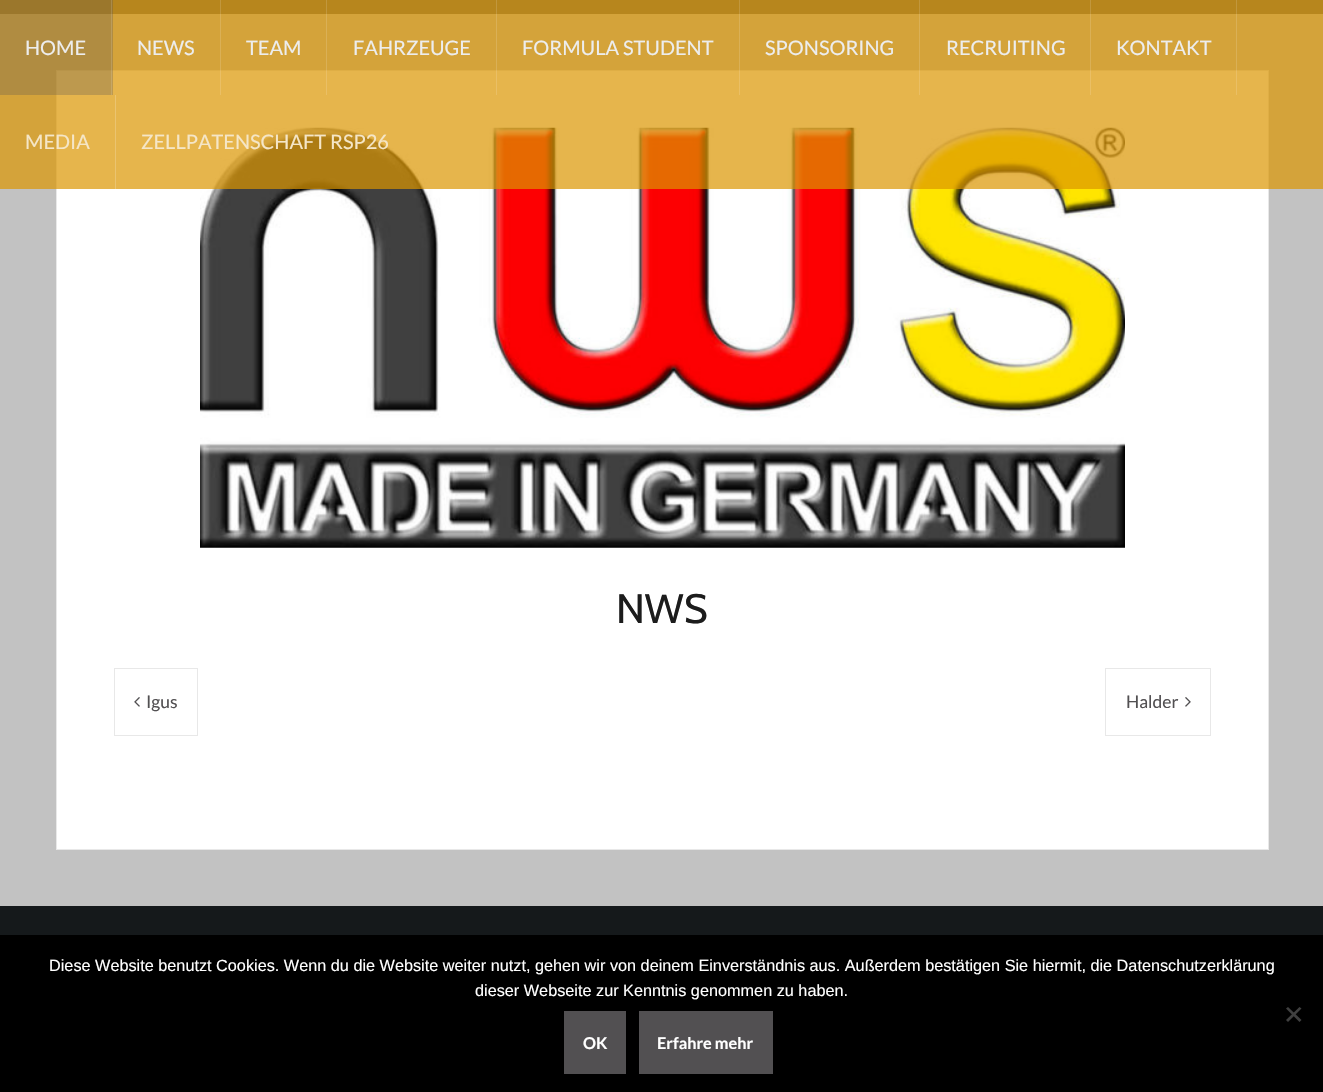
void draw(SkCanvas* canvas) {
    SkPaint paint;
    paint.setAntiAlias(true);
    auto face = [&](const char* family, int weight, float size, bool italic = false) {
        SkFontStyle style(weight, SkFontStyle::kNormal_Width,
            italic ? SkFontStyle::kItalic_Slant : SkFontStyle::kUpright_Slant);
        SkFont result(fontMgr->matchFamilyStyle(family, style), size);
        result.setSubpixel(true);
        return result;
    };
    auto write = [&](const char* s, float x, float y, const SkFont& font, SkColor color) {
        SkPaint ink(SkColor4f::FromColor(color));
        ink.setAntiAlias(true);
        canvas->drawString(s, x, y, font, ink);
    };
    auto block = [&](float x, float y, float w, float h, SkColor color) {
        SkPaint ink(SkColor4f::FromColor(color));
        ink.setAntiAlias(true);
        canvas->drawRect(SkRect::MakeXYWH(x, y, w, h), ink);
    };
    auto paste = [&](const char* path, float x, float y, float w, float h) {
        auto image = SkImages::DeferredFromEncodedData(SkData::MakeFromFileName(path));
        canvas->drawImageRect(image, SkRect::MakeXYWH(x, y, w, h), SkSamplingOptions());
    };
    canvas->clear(SkColorSetRGB(194, 194, 194));
    block(0, 0, 1323, 14, SkColorSetRGB(97, 97, 97));
    paint.setColor(SK_ColorWHITE);
    canvas->drawRect(SkRect::MakeXYWH(56.5f, 70.5f, 1212, 779), paint);
    paint.setStyle(SkPaint::kStroke_Style);
    paint.setStrokeWidth(1);
    paint.setColor(SkColorSetRGB(232, 232, 232));
    canvas->drawRect(SkRect::MakeXYWH(56.5f, 70.5f, 1212, 779), paint);
    paste("pic1.png", 200, 127, 925, 421);
    block(0, 0, 1323, 189, SkColorSetARGB(179, 219, 149, 0));
    block(0, 0, 113, 95, SkColorSetARGB(71, 82, 80, 82));
    block(111, 0, 1, 95, SkColorSetARGB(36, 255, 255, 255));
    auto kFont1 = face("Lato", 400, 20);
    write("HOME", 25, 55, kFont1, SkColorSetRGB(237, 237, 237));
    block(220, 0, 1, 95, SkColorSetARGB(36, 255, 255, 255));
    write("NEWS", 137, 55, kFont1, SkColorSetRGB(237, 237, 237));
    block(326, 0, 1, 95, SkColorSetARGB(36, 255, 255, 255));
    write("TEAM", 246, 55, kFont1, SkColorSetRGB(237, 237, 237));
    block(496, 0, 1, 95, SkColorSetARGB(36, 255, 255, 255));
    write("FAHRZEUGE", 353, 55, kFont1, SkColorSetRGB(237, 237, 237));
    block(739, 0, 1, 95, SkColorSetARGB(36, 255, 255, 255));
    write("FORMULA STUDENT", 522, 55, kFont1, SkColorSetRGB(237, 237, 237));
    block(919, 0, 1, 95, SkColorSetARGB(36, 255, 255, 255));
    write("SPONSORING", 765, 55, kFont1, SkColorSetRGB(237, 237, 237));
    block(1090, 0, 1, 95, SkColorSetARGB(36, 255, 255, 255));
    write("RECRUITING", 946, 55, kFont1, SkColorSetRGB(237, 237, 237));
    block(1236, 0, 1, 95, SkColorSetARGB(36, 255, 255, 255));
    write("KONTAKT", 1116, 55, kFont1, SkColorSetRGB(237, 237, 237));
    block(115, 95, 1, 94, SkColorSetRGB(235, 196, 112));
    write("MEDIA", 25, 149, kFont1, SkColorSetRGB(245, 230, 199));
    write("ZELLPATENSCHAFT RSP26", 141, 149, kFont1, SkColorSetRGB(245, 230, 199));
    auto kFont2 = face("Cabin", 400, 41);
    write("NWS", 616, 623, kFont2, SkColorSetRGB(28, 28, 28));
    canvas->drawRect(SkRect::MakeXYWH(114.5f, 668.5f, 83, 67), paint);
    paste("pic2.png", 134, 697, 6, 10);
    auto kFont3 = face("Lato", 400, 17.5f);
    write("Igus", 146, 708, kFont3, SkColorSetRGB(82, 80, 82));
    canvas->drawRect(SkRect::MakeXYWH(1105.5f, 668.5f, 105, 67), paint);
    write("Halder", 1126, 708, kFont3, SkColorSetRGB(82, 80, 82));
    paste("pic3.png", 1185, 697, 6, 10);
    block(0, 906, 1323, 29, SkColorSetRGB(21, 25, 27));
    block(0, 935, 1323, 157, SK_ColorBLACK);
    auto kFont4 = face("Liberation Sans", 400, 16.25f);
    write("Diese Website benutzt Cookies. Wenn du die Website weiter nutzt, gehen wir von deinem Einverständnis aus. Außerdem bestätigen Sie hiermit, die Datenschutzerklärung", 49, 971, kFont4, SK_ColorWHITE);
    write("dieser Webseite zur Kenntnis genommen zu haben.", 475, 996, kFont4, SK_ColorWHITE);
    paint.setStyle(SkPaint::kFill_Style);
    paint.setColor(SkColorSetRGB(64, 64, 64));
    canvas->drawPath(SkPathBuilder().moveTo(1299.5f, 1007).lineTo(1301.5f, 1008.5f).lineTo(1288, 1022).lineTo(1286, 1020).close().detach(), paint);
    canvas->drawPath(SkPathBuilder().moveTo(1286, 1008.5f).lineTo(1288, 1007).lineTo(1301.5f, 1020).lineTo(1299.5f, 1022).close().detach(), paint);
    block(564, 1011, 62, 63, SkColorSetRGB(82, 80, 82));
    auto kFont5 = face("Lato", 700, 16.25f);
    write("OK", 583, 1049, kFont5, SK_ColorWHITE);
    block(639, 1011, 134, 63, SkColorSetRGB(82, 80, 82));
    write("Erfahre mehr", 657, 1049, kFont5, SK_ColorWHITE);
}
